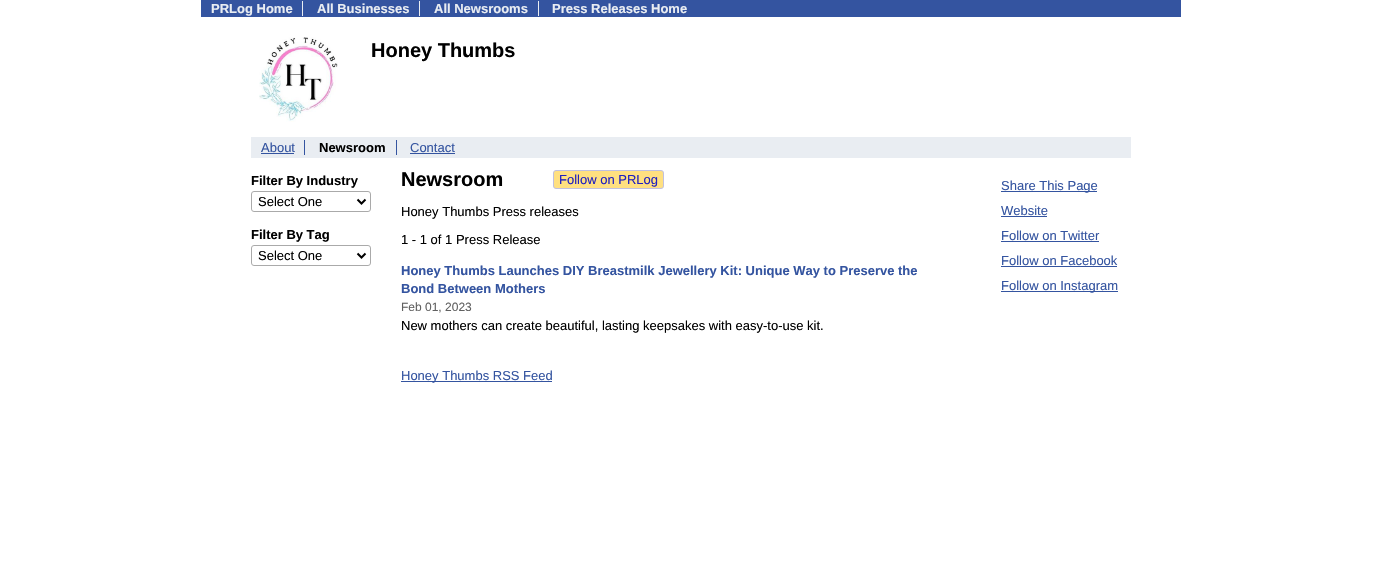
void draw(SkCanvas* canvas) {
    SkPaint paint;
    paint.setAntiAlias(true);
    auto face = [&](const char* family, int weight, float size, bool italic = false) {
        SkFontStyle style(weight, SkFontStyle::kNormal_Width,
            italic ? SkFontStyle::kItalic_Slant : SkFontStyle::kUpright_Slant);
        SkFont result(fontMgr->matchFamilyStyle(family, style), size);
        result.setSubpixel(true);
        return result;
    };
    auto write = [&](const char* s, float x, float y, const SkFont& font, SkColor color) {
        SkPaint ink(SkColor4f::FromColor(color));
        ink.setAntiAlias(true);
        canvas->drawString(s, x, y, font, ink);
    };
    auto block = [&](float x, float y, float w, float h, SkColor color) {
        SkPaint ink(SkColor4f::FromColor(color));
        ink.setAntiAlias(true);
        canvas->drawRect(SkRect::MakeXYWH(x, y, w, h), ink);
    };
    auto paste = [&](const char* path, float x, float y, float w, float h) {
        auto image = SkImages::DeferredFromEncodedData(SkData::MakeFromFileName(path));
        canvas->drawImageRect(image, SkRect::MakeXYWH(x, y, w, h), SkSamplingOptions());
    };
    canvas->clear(SK_ColorWHITE);
    block(201, 0, 980, 17, SkColorSetRGB(52, 84, 160));
    block(302, 1, 1, 15, SkColorSetRGB(233, 237, 242));
    auto kFont1 = face("Liberation Sans", 700, 13);
    write("PRLog Home", 211, 13, kFont1, SkColorSetRGB(233, 237, 242));
    block(419, 1, 1, 15, SkColorSetRGB(233, 237, 242));
    write("All Businesses", 317, 13, kFont1, SkColorSetRGB(233, 237, 242));
    block(538, 1, 1, 15, SkColorSetRGB(233, 237, 242));
    write("All Newsrooms", 434, 13, kFont1, SkColorSetRGB(233, 237, 242));
    write("Press Releases Home", 552, 13, kFont1, SkColorSetRGB(233, 237, 242));
    paste("pic1.png", 259, 37, 79, 85);
    auto kFont2 = face("Liberation Sans", 700, 20);
    write("Honey Thumbs", 371, 57, kFont2, SK_ColorBLACK);
    block(251, 137, 880, 21, SkColorSetRGB(233, 237, 242));
    block(304, 140, 1, 15, SkColorSetRGB(52, 84, 160));
    auto kFont3 = face("Liberation Sans", 400, 13);
    write("About", 261, 152, kFont3, SkColorSetRGB(52, 84, 160));
    block(261, 153, 33, 1, SkColorSetRGB(52, 84, 160));
    block(396, 140, 1, 15, SkColorSetRGB(52, 84, 160));
    write("Newsroom", 319, 152, kFont1, SK_ColorBLACK);
    write("Contact", 410, 152, kFont3, SkColorSetRGB(52, 84, 160));
    block(410, 153, 45, 1, SkColorSetRGB(52, 84, 160));
    write("Filter By Industry", 251, 185, kFont1, SK_ColorBLACK);
    paint.setStyle(SkPaint::kStroke_Style);
    paint.setStrokeWidth(1);
    paint.setColor(SkColorSetRGB(170, 170, 170));
    canvas->drawRoundRect(SkRect::MakeXYWH(251.5f, 191.5f, 119, 20), 2.5f, 2.5f, paint);
    paint.setStrokeWidth(2);
    paint.setColor(SK_ColorBLACK);
    canvas->drawPath(SkPathBuilder().moveTo(357.5f, 199.5f).lineTo(361.5f, 203.5f).lineTo(365.5f, 199.5f).detach(), paint);
    write("Select One", 258, 206, kFont3, SK_ColorBLACK);
    write("Filter By Tag", 251, 239, kFont1, SK_ColorBLACK);
    paint.setStrokeWidth(1);
    paint.setColor(SkColorSetRGB(170, 170, 170));
    canvas->drawRoundRect(SkRect::MakeXYWH(251.5f, 245.5f, 119, 20), 2.5f, 2.5f, paint);
    paint.setStrokeWidth(2);
    paint.setColor(SK_ColorBLACK);
    canvas->drawPath(SkPathBuilder().moveTo(357.5f, 253.5f).lineTo(361.5f, 257.5f).lineTo(365.5f, 253.5f).detach(), paint);
    write("Select One", 258, 260, kFont3, SK_ColorBLACK);
    write("Newsroom", 401, 186, kFont2, SK_ColorBLACK);
    paint.setStyle(SkPaint::kFill_Style);
    paint.setColor(SkColorSetRGB(255, 224, 128));
    canvas->drawRoundRect(SkRect::MakeXYWH(553.5f, 170.5f, 110, 18), 2.5f, 2.5f, paint);
    paint.setStyle(SkPaint::kStroke_Style);
    paint.setStrokeWidth(1);
    paint.setColor(SkColorSetRGB(192, 192, 224));
    canvas->drawRoundRect(SkRect::MakeXYWH(553.5f, 170.5f, 110, 18), 2.5f, 2.5f, paint);
    write("Follow on PRLog", 559, 184, kFont3, SkColorSetRGB(32, 32, 192));
    write("Honey Thumbs Press releases", 401, 216, kFont3, SK_ColorBLACK);
    write("1 - 1 of 1 Press Release", 401, 244, kFont3, SK_ColorBLACK);
    write("Honey Thumbs Launches DIY Breastmilk Jewellery Kit: Unique Way to Preserve the", 401, 275, kFont1, SkColorSetRGB(52, 84, 160));
    write("Bond Between Mothers", 401, 293, kFont1, SkColorSetRGB(52, 84, 160));
    auto kFont4 = face("Liberation Sans", 400, 12);
    write("Feb 01, 2023", 401, 311, kFont4, SkColorSetRGB(96, 96, 96));
    write("New mothers can create beautiful, lasting keepsakes with easy-to-use kit.", 401, 330, kFont3, SK_ColorBLACK);
    block(401, 381, 151, 1, SkColorSetRGB(52, 84, 160));
    write("Honey Thumbs RSS Feed", 401, 380, kFont3, SkColorSetRGB(52, 84, 160));
    block(1001, 191, 96, 1, SkColorSetRGB(52, 84, 160));
    write("Share This Page", 1001, 190, kFont3, SkColorSetRGB(52, 84, 160));
    write("Website", 1001, 215, kFont3, SkColorSetRGB(52, 84, 160));
    block(1001, 216, 46, 1, SkColorSetRGB(52, 84, 160));
    write("Follow on Twitter", 1001, 240, kFont3, SkColorSetRGB(52, 84, 160));
    block(1001, 241, 98, 1, SkColorSetRGB(52, 84, 160));
    write("Follow on Facebook", 1001, 265, kFont3, SkColorSetRGB(52, 84, 160));
    block(1001, 266, 116, 1, SkColorSetRGB(52, 84, 160));
    block(1001, 291, 117, 1, SkColorSetRGB(52, 84, 160));
    write("Follow on Instagram", 1001, 290, kFont3, SkColorSetRGB(52, 84, 160));
}
